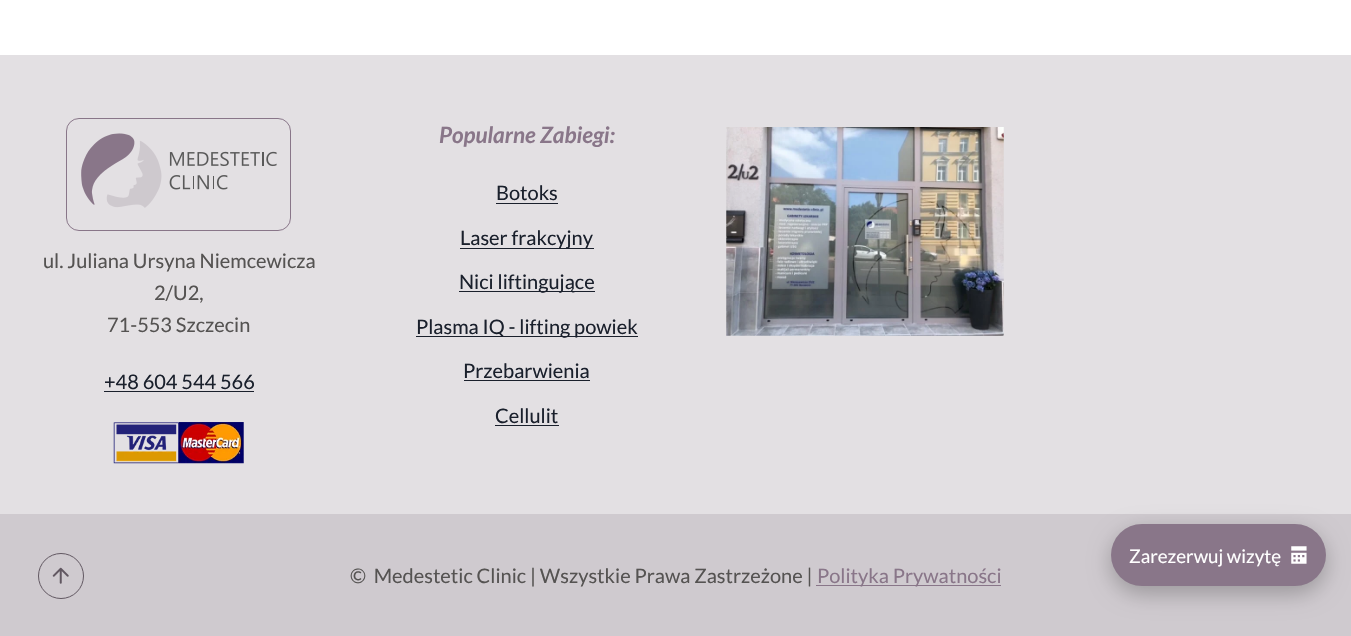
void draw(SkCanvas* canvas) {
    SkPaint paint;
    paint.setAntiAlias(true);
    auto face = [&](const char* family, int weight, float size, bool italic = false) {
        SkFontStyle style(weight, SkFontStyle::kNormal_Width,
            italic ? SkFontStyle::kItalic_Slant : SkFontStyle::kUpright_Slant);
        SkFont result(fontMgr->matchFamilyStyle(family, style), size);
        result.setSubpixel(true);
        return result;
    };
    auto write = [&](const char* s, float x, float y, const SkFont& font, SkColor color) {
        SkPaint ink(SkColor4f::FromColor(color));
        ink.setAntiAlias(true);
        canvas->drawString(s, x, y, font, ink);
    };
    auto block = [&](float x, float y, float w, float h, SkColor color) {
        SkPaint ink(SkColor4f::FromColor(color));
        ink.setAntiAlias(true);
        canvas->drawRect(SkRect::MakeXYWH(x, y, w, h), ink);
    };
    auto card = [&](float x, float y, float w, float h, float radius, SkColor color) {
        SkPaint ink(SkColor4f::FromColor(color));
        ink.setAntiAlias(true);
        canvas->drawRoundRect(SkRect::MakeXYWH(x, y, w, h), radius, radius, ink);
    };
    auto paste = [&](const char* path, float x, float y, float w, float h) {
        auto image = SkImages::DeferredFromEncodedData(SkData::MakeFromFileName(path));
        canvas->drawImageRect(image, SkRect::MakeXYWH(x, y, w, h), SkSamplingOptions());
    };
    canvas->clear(SK_ColorWHITE);
    block(0, 55, 1351, 459, SkColorSetRGB(227, 224, 227));
    paint.setStyle(SkPaint::kStroke_Style);
    paint.setStrokeWidth(1);
    paint.setColor(SkColorSetRGB(137, 118, 137));
    canvas->drawRoundRect(SkRect::MakeXYWH(66.5f, 118.5f, 224, 112), 12.5f, 12.5f, paint);
    paste("pic1.png", 81, 133, 196, 75);
    auto kFont1 = face("Lato", 400, 20);
    write("ul. Juliana Ursyna Niemcewicza", 43, 268, kFont1, SkColorSetRGB(85, 83, 82));
    write("2/U2,", 154, 300, kFont1, SkColorSetRGB(85, 83, 82));
    write("71-553 Szczecin", 107, 332, kFont1, SkColorSetRGB(85, 83, 82));
    write("+48 604 544 566", 104, 389, kFont1, SkColorSetRGB(26, 32, 44));
    block(104, 391, 150, 1, SkColorSetRGB(26, 32, 44));
    paste("pic2.png", 113, 422, 131, 42);
    auto kFont2 = face("Lato", 700, 22.5f, true);
    write("Popularne Zabiegi:", 439, 143, kFont2, SkColorSetRGB(137, 118, 137));
    write("Botoks", 496, 200, kFont1, SkColorSetRGB(26, 32, 44));
    block(496, 203, 62, 1, SkColorSetRGB(26, 32, 44));
    block(460, 248, 134, 1, SkColorSetRGB(26, 32, 44));
    write("Laser frakcyjny", 460, 245, kFont1, SkColorSetRGB(26, 32, 44));
    block(459, 291, 136, 1, SkColorSetRGB(26, 32, 44));
    write("Nici liftingujące", 459, 289, kFont1, SkColorSetRGB(26, 32, 44));
    block(416, 336, 222, 1, SkColorSetRGB(26, 32, 44));
    write("Plasma IQ - lifting powiek", 416, 334, kFont1, SkColorSetRGB(26, 32, 44));
    write("Przebarwienia", 463, 378, kFont1, SkColorSetRGB(26, 32, 44));
    block(464, 380, 126, 1, SkColorSetRGB(26, 32, 44));
    write("Cellulit", 495, 423, kFont1, SkColorSetRGB(26, 32, 44));
    block(495, 425, 64, 1, SkColorSetRGB(26, 32, 44));
    paste("pic3.png", 726, 127, 278, 209);
    block(0, 514, 1351, 122, SkColorSetRGB(207, 202, 207));
    write("©  Medestetic Clinic | Wszystkie Prawa Zastrzeżone |", 350, 583, kFont1, SkColorSetRGB(85, 83, 82));
    block(816, 585, 185, 1, SkColorSetRGB(137, 118, 137));
    write("Polityka Prywatności", 817, 583, kFont1, SkColorSetRGB(137, 118, 137));
    paint.setStyle(SkPaint::kFill_Style);
    paint.setColor(SkColorSetARGB(64, 0, 0, 0));
    paint.setMaskFilter(SkMaskFilter::MakeBlur(kNormal_SkBlurStyle, 11));
    canvas->drawRoundRect(SkRect::MakeXYWH(1111, 531, 215, 63), 31.5f, 31.5f, paint);
    paint.setMaskFilter(nullptr);
    card(1111, 524, 215, 62, 31, SkColorSetRGB(137, 118, 137));
    auto kFont3 = face("Lato", 400, 18.75f);
    write("Zarezerwuj wizytę", 1129, 563, kFont3, SK_ColorWHITE);
    paste("pic4.png", 1291, 546, 16, 18);
    paint.setStyle(SkPaint::kStroke_Style);
    paint.setColor(SkColorSetRGB(97, 87, 97));
    canvas->drawCircle(61, 576, 22.5f, paint);
    paste("pic5.png", 52, 567, 17, 17);
}
